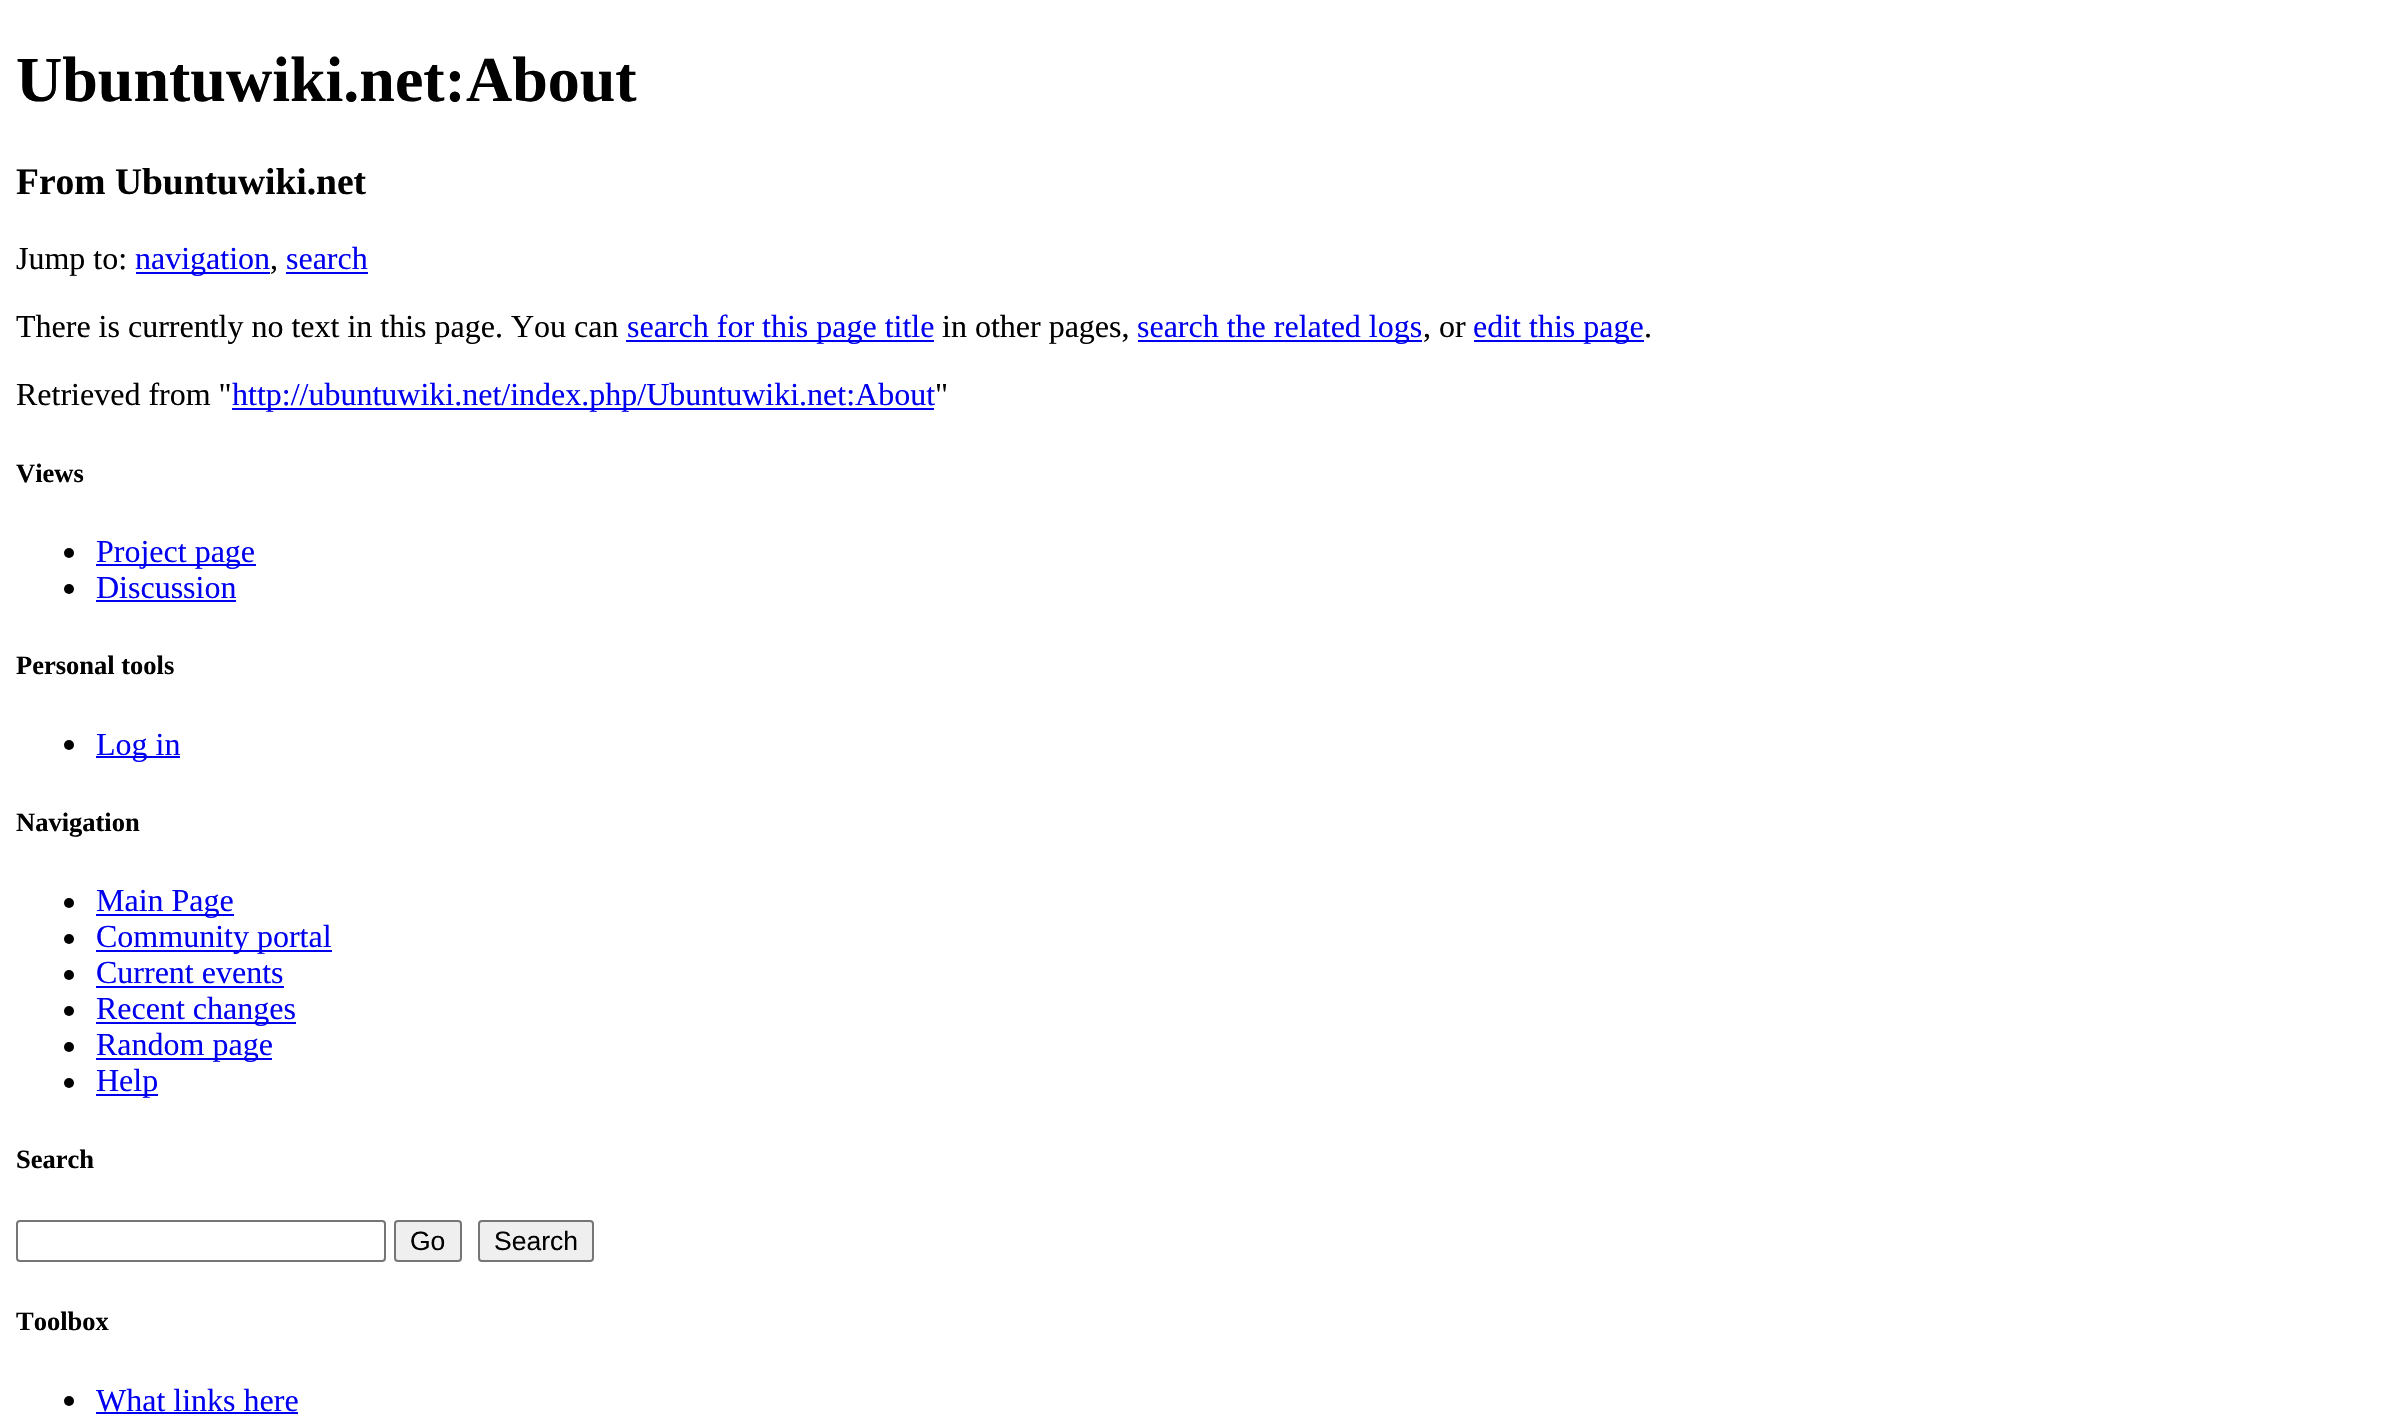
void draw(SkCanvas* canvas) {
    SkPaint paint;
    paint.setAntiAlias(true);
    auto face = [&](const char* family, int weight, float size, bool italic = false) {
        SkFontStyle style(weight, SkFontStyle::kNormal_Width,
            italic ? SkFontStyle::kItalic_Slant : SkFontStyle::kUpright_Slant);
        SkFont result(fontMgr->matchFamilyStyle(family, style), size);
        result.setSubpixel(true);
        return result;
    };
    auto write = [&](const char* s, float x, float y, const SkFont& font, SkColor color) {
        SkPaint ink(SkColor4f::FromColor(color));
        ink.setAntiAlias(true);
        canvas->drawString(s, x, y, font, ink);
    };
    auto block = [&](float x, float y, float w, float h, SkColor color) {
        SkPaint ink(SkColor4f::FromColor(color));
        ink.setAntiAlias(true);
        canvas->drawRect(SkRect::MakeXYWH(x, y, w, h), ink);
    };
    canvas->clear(SK_ColorWHITE);
    auto kFont1 = face("Liberation Serif", 700, 64);
    write("Ubuntuwiki.net:About", 16, 101, kFont1, SK_ColorBLACK);
    auto kFont2 = face("Liberation Serif", 700, 37.5f);
    write("From Ubuntuwiki.net", 16, 194, kFont2, SK_ColorBLACK);
    auto kFont3 = face("Liberation Serif", 400, 32);
    write("Jump to:", 16, 269, kFont3, SK_ColorBLACK);
    block(136, 272, 134, 2, SkColorSetRGB(0, 0, 238));
    write("navigation", 135, 269, kFont3, SkColorSetRGB(0, 0, 238));
    write(",", 270, 269, kFont3, SK_ColorBLACK);
    write("search", 286, 269, kFont3, SkColorSetRGB(0, 0, 238));
    block(286, 272, 82, 2, SkColorSetRGB(0, 0, 238));
    write("There is currently no text in this page. You can", 16, 337, kFont3, SK_ColorBLACK);
    block(626, 340, 308, 2, SkColorSetRGB(0, 0, 238));
    write("search for this page title", 627, 337, kFont3, SkColorSetRGB(0, 0, 238));
    write("in other pages,", 942, 337, kFont3, SK_ColorBLACK);
    block(1138, 340, 284, 2, SkColorSetRGB(0, 0, 238));
    write("search the related logs", 1137, 337, kFont3, SkColorSetRGB(0, 0, 238));
    write(", or", 1423, 337, kFont3, SK_ColorBLACK);
    block(1474, 340, 170, 2, SkColorSetRGB(0, 0, 238));
    write("edit this page", 1473, 337, kFont3, SkColorSetRGB(0, 0, 238));
    write(".", 1644, 337, kFont3, SK_ColorBLACK);
    write("Retrieved from \"", 16, 405, kFont3, SK_ColorBLACK);
    block(232, 408, 702, 2, SkColorSetRGB(0, 0, 238));
    write("http://ubuntuwiki.net/index.php/Ubuntuwiki.net:About", 232, 405, kFont3, SkColorSetRGB(0, 0, 238));
    write("\"", 935, 405, kFont3, SK_ColorBLACK);
    auto kFont4 = face("Liberation Serif", 700, 26.5f);
    write("Views", 16, 482, kFont4, SK_ColorBLACK);
    paint.setColor(SK_ColorBLACK);
    canvas->drawCircle(69, 553, 5, paint);
    block(96, 564, 160, 2, SkColorSetRGB(0, 0, 238));
    write("Project page", 96, 562, kFont3, SkColorSetRGB(0, 0, 238));
    canvas->drawCircle(69, 589, 5, paint);
    write("Discussion", 96, 598, kFont3, SkColorSetRGB(0, 0, 238));
    block(96, 600, 140, 2, SkColorSetRGB(0, 0, 238));
    write("Personal tools", 16, 674, kFont4, SK_ColorBLACK);
    canvas->drawCircle(69, 745, 5, paint);
    block(96, 756, 84, 2, SkColorSetRGB(0, 0, 238));
    write("Log in", 96, 755, kFont3, SkColorSetRGB(0, 0, 238));
    write("Navigation", 16, 831, kFont4, SK_ColorBLACK);
    canvas->drawCircle(69, 903, 5, paint);
    block(96, 914, 138, 2, SkColorSetRGB(0, 0, 238));
    write("Main Page", 96, 911, kFont3, SkColorSetRGB(0, 0, 238));
    canvas->drawCircle(69, 939, 5, paint);
    block(96, 950, 236, 2, SkColorSetRGB(0, 0, 238));
    write("Community portal", 96, 947, kFont3, SkColorSetRGB(0, 0, 238));
    canvas->drawCircle(69, 975, 5, paint);
    write("Current events", 96, 983, kFont3, SkColorSetRGB(0, 0, 238));
    block(96, 986, 188, 2, SkColorSetRGB(0, 0, 238));
    canvas->drawCircle(69, 1011, 5, paint);
    block(96, 1022, 200, 2, SkColorSetRGB(0, 0, 238));
    write("Recent changes", 96, 1019, kFont3, SkColorSetRGB(0, 0, 238));
    canvas->drawCircle(69, 1047, 5, paint);
    block(96, 1058, 176, 2, SkColorSetRGB(0, 0, 238));
    write("Random page", 96, 1055, kFont3, SkColorSetRGB(0, 0, 238));
    canvas->drawCircle(69, 1083, 5, paint);
    block(96, 1094, 62, 2, SkColorSetRGB(0, 0, 238));
    write("Help", 96, 1091, kFont3, SkColorSetRGB(0, 0, 238));
    write("Search", 16, 1168, kFont4, SK_ColorBLACK);
    paint.setStyle(SkPaint::kStroke_Style);
    paint.setStrokeWidth(2);
    paint.setColor(SkColorSetRGB(118, 118, 118));
    canvas->drawRoundRect(SkRect::MakeXYWH(17, 1221, 368, 40), 3, 3, paint);
    paint.setStyle(SkPaint::kFill_Style);
    paint.setColor(SkColorSetRGB(239, 239, 239));
    canvas->drawRoundRect(SkRect::MakeXYWH(395, 1221, 66, 40), 3, 3, paint);
    paint.setStyle(SkPaint::kStroke_Style);
    paint.setColor(SkColorSetRGB(118, 118, 118));
    canvas->drawRoundRect(SkRect::MakeXYWH(395, 1221, 66, 40), 3, 3, paint);
    auto kFont5 = face("Liberation Sans", 400, 26.5f);
    write("Go", 410, 1250, kFont5, SK_ColorBLACK);
    paint.setStyle(SkPaint::kFill_Style);
    paint.setColor(SkColorSetRGB(239, 239, 239));
    canvas->drawRoundRect(SkRect::MakeXYWH(479, 1221, 114, 40), 3, 3, paint);
    paint.setStyle(SkPaint::kStroke_Style);
    paint.setColor(SkColorSetRGB(118, 118, 118));
    canvas->drawRoundRect(SkRect::MakeXYWH(479, 1221, 114, 40), 3, 3, paint);
    write("Search", 494, 1250, kFont5, SK_ColorBLACK);
    write("Toolbox", 16, 1330, kFont4, SK_ColorBLACK);
    paint.setStyle(SkPaint::kFill_Style);
    paint.setColor(SK_ColorBLACK);
    canvas->drawCircle(69, 1401, 5, paint);
    write("What links here", 96, 1411, kFont3, SkColorSetRGB(0, 0, 238));
    block(96, 1412, 202, 2, SkColorSetRGB(0, 0, 238));
}
